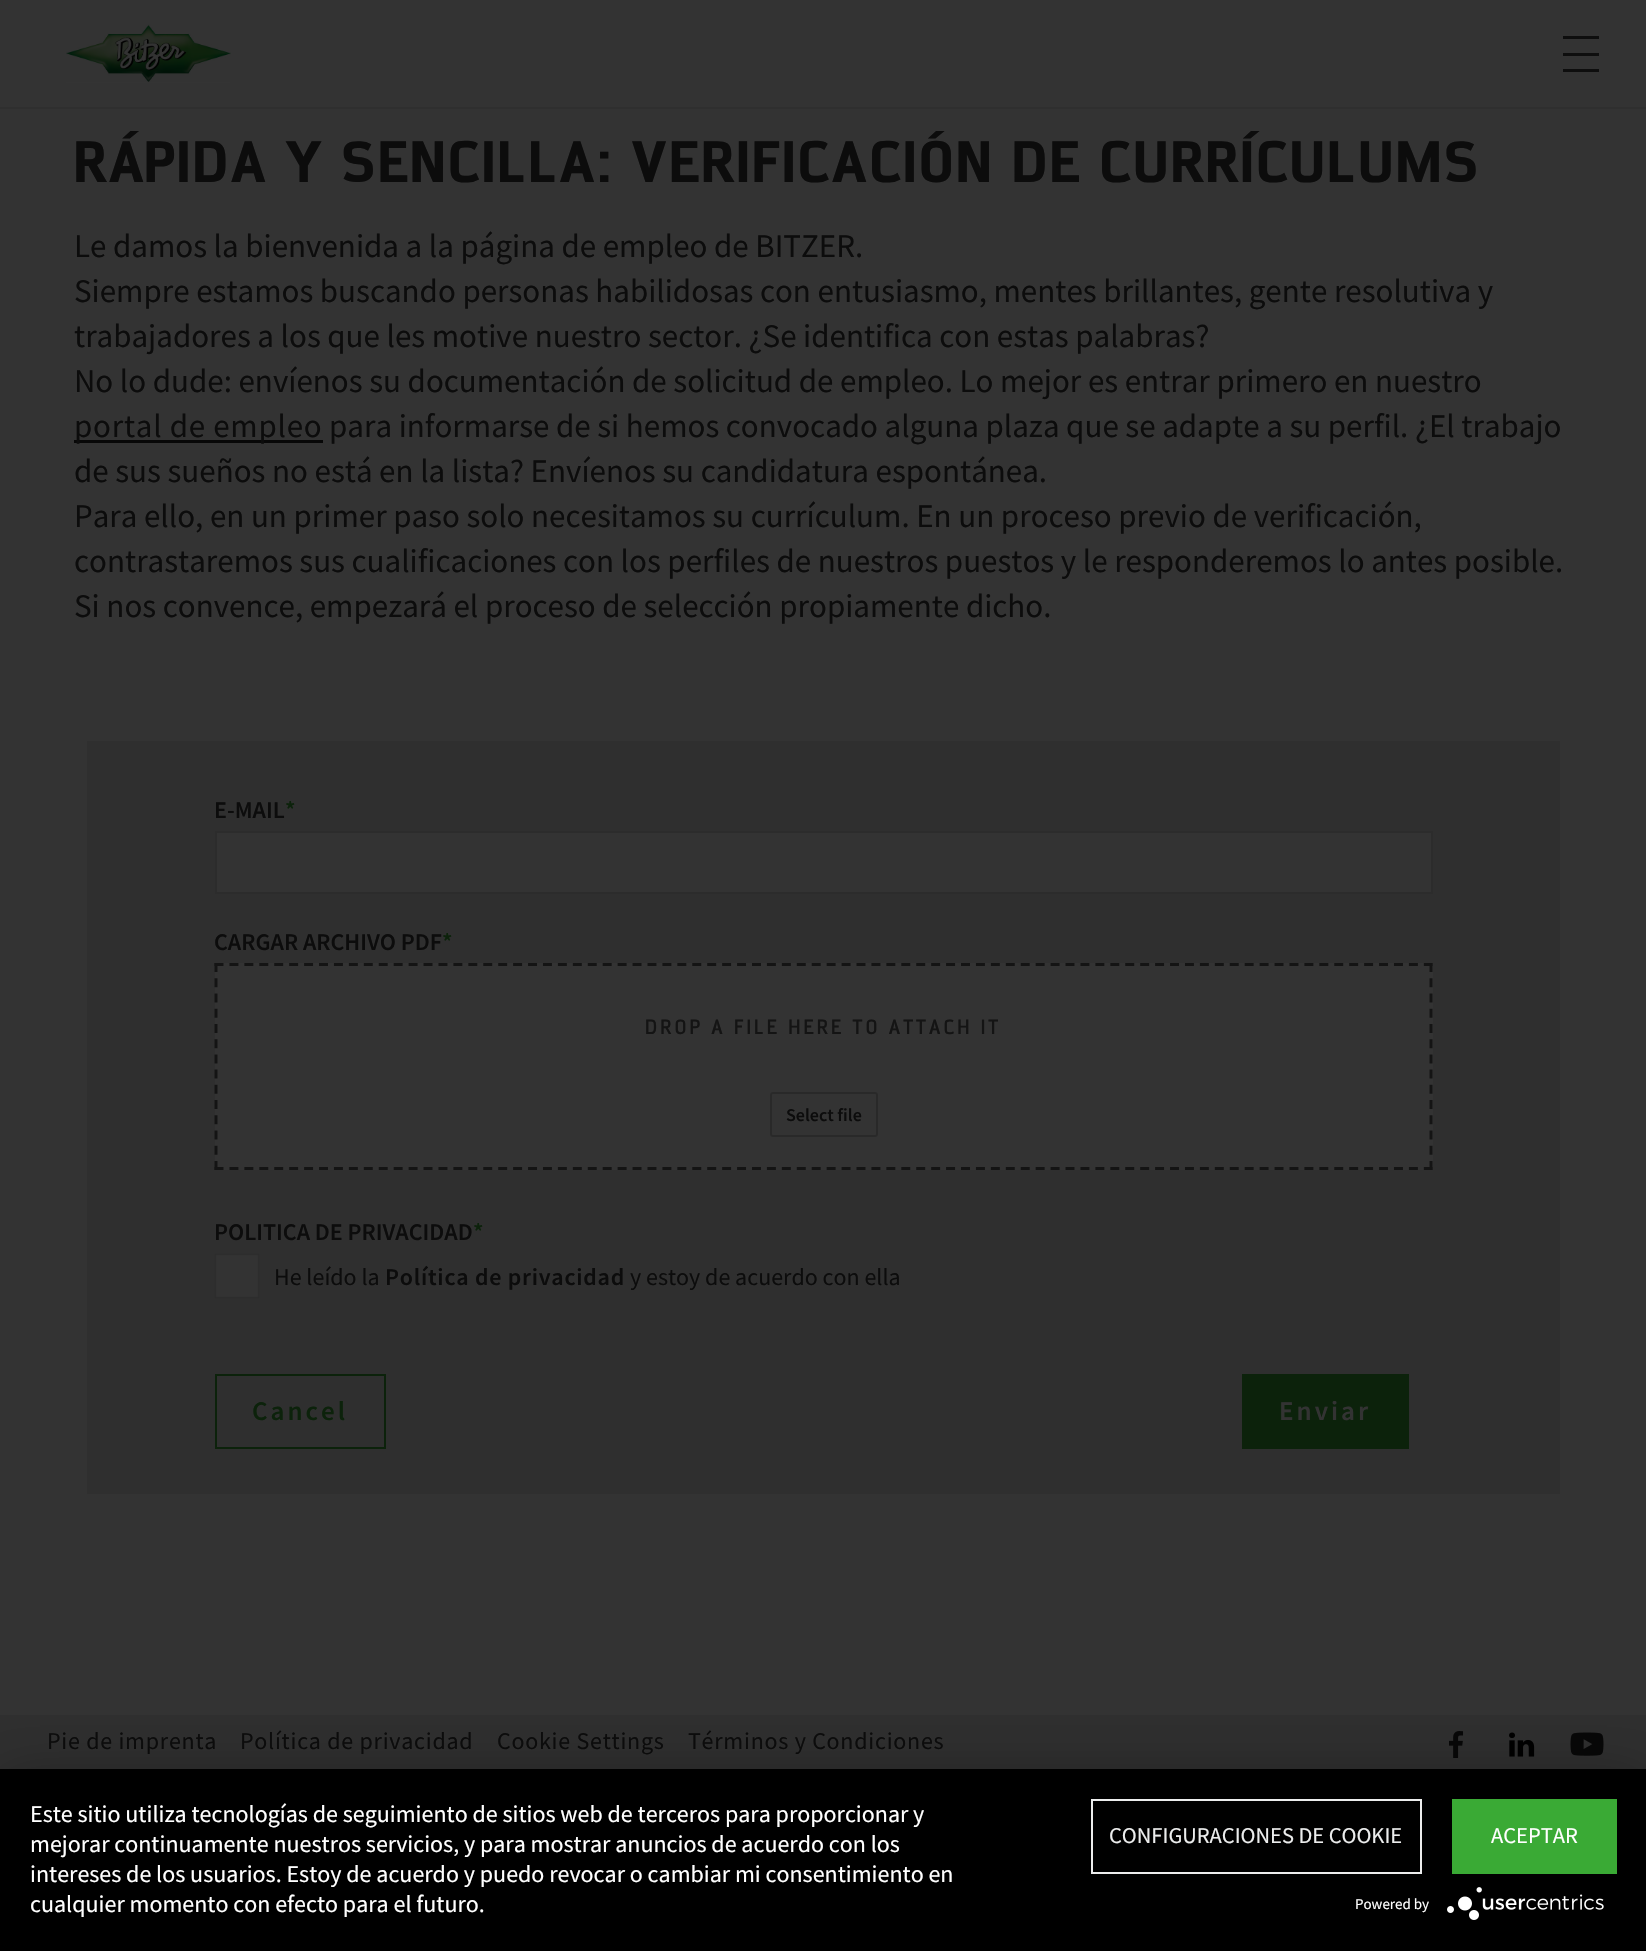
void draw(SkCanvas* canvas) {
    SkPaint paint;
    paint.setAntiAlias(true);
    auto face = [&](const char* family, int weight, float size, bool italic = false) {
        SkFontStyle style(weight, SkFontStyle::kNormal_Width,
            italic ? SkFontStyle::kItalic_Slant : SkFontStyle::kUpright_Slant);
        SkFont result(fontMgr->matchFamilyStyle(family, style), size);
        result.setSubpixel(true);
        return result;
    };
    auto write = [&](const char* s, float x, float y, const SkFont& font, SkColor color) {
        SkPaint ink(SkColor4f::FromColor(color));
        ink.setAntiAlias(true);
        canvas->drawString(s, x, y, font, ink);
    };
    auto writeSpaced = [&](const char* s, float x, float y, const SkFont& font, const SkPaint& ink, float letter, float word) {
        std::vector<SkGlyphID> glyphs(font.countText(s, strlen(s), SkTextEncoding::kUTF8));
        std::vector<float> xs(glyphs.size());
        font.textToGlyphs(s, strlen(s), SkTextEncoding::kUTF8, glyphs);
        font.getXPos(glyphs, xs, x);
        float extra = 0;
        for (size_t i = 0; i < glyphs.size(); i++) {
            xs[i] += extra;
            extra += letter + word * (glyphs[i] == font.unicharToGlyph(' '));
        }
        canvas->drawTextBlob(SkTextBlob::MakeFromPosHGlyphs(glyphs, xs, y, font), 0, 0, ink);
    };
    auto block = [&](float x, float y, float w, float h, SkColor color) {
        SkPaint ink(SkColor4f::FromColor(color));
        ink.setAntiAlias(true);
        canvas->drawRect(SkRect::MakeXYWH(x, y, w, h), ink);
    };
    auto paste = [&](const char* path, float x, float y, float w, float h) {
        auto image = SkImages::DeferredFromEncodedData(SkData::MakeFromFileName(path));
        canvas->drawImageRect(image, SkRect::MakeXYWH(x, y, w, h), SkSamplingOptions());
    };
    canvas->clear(SkColorSetRGB(51, 51, 51));
    block(0, 107, 1646, 2, SkColorSetRGB(47, 47, 47));
    paste("pic1.png", 66, 24, 165, 59);
    block(1563, 36, 36, 3, SkColorSetRGB(14, 14, 14));
    block(1563, 53, 36, 3, SkColorSetRGB(14, 14, 14));
    block(1563, 69, 36, 3, SkColorSetRGB(14, 14, 14));
    auto kFont1 = face("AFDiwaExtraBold", 800, 51);
    paint.setColor(SkColorSetRGB(12, 12, 12));
    writeSpaced("RÁPIDA Y SENCILLA: VERIFICACIÓN DE CURRÍCULUMS", 74, 182, kFont1, paint, 3, 0);
    auto kFont2 = face("Source Sans Pro", 400, 33);
    write("Le damos la bienvenida a la página de empleo de BITZER.", 74, 257, kFont2, SkColorSetRGB(12, 12, 12));
    write("Siempre estamos buscando personas habilidosas con entusiasmo, mentes brillantes, gente resolutiva y", 74, 302, kFont2, SkColorSetRGB(12, 12, 12));
    write("trabajadores a los que les motive nuestro sector. ¿Se identifica con estas palabras?", 74, 347, kFont2, SkColorSetRGB(12, 12, 12));
    write("No lo dude: envíenos su documentación de solicitud de empleo. Lo mejor es entrar primero en nuestro", 74, 392, kFont2, SkColorSetRGB(12, 12, 12));
    block(74, 440, 249, 3, SkColorSetRGB(7, 7, 7));
    writeSpaced("portal de empleo", 74, 437, kFont2, paint, 0.75f, 0);
    write("para informarse de si hemos convocado alguna plaza que se adapte a su perfil. ¿El trabajo", 329, 437, kFont2, SkColorSetRGB(12, 12, 12));
    write("de sus sueños no está en la lista? Envíenos su candidatura espontánea.", 74, 482, kFont2, SkColorSetRGB(12, 12, 12));
    write("Para ello, en un primer paso solo necesitamos su currículum. En un proceso previo de verificación,", 74, 527, kFont2, SkColorSetRGB(12, 12, 12));
    write("contrastaremos sus cualificaciones con los perfiles de nuestros puestos y le responderemos lo antes posible.", 74, 572, kFont2, SkColorSetRGB(12, 12, 12));
    write("Si nos convence, empezará el proceso de selección propiamente dicho.", 74, 617, kFont2, SkColorSetRGB(12, 12, 12));
    block(87, 741, 1473, 753, SkColorSetRGB(47, 47, 47));
    auto kFont3 = face("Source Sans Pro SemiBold", 600, 24);
    write("E-MAIL", 214, 818, kFont3, SkColorSetRGB(12, 12, 12));
    write("*", 285, 818, kFont3, SkColorSetRGB(12, 34, 11));
    paint.setColor(SkColorSetRGB(51, 51, 51));
    canvas->drawRect(SkRect::MakeXYWH(216, 832, 1216, 61), paint);
    paint.setStyle(SkPaint::kStroke_Style);
    paint.setStrokeWidth(2);
    paint.setColor(SkColorSetRGB(44, 44, 44));
    canvas->drawRect(SkRect::MakeXYWH(216, 832, 1216, 61), paint);
    write("CARGAR ARCHIVO PDF", 214, 950, kFont3, SkColorSetRGB(12, 12, 12));
    write("*", 442, 950, kFont3, SkColorSetRGB(12, 34, 11));
    block(215, 963, 1218, 207, SkColorSetRGB(51, 51, 51));
    paint.setStrokeWidth(3);
    paint.setColor(SkColorSetRGB(20, 20, 20));
    paint.setPathEffect(SkDashPathEffect::Make({{9, 5.93f}}, 0));
    canvas->drawPath(SkPathBuilder().moveTo(214.5f, 964.5f).lineTo(1432.5f, 964.5f).detach(), paint);
    paint.setPathEffect(nullptr);
    paint.setPathEffect(SkDashPathEffect::Make({{9, 6.23f}}, 0));
    canvas->drawPath(SkPathBuilder().moveTo(1431, 963).lineTo(1431, 1170).detach(), paint);
    paint.setPathEffect(nullptr);
    paint.setPathEffect(SkDashPathEffect::Make({{9, 5.93f}}, 0));
    canvas->drawPath(SkPathBuilder().moveTo(214.5f, 1168.5f).lineTo(1432.5f, 1168.5f).detach(), paint);
    paint.setPathEffect(nullptr);
    paint.setPathEffect(SkDashPathEffect::Make({{9, 6.23f}}, 0));
    canvas->drawPath(SkPathBuilder().moveTo(216, 963).lineTo(216, 1170).detach(), paint);
    paint.setPathEffect(nullptr);
    auto kFont4 = face("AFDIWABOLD", 700, 18);
    paint.setStyle(SkPaint::kFill_Style);
    writeSpaced("DROP A FILE HERE TO ATTACH IT", 645, 1034, kFont4, paint, 3, 0);
    paint.setStyle(SkPaint::kStroke_Style);
    paint.setStrokeWidth(2);
    paint.setColor(SkColorSetRGB(41, 41, 41));
    canvas->drawRoundRect(SkRect::MakeXYWH(771, 1093, 106, 43), 2, 2, paint);
    auto kFont5 = face("Source Sans Pro SemiBold", 600, 18);
    write("Select file", 786, 1121, kFont5, SkColorSetRGB(12, 12, 12));
    write("POLITICA DE PRIVACIDAD", 214, 1240, kFont3, SkColorSetRGB(12, 12, 12));
    write("*", 473, 1240, kFont3, SkColorSetRGB(12, 34, 11));
    paste("pic2.png", 214, 1253, 46, 46);
    auto kFont6 = face("Source Sans Pro", 400, 24);
    write("He leído la", 274, 1285, kFont6, SkColorSetRGB(12, 12, 12));
    paint.setStyle(SkPaint::kFill_Style);
    paint.setColor(SkColorSetRGB(12, 12, 12));
    writeSpaced("Política de privacidad", 385, 1285, kFont3, paint, 0.75f, 0);
    write("y estoy de acuerdo con ella", 630, 1285, kFont6, SkColorSetRGB(12, 12, 12));
    paint.setStyle(SkPaint::kStroke_Style);
    paint.setColor(SkColorSetRGB(12, 34, 11));
    canvas->drawRect(SkRect::MakeXYWH(216, 1375, 169, 73), paint);
    auto kFont7 = face("Source Sans Pro SemiBold", 600, 27);
    paint.setStyle(SkPaint::kFill_Style);
    writeSpaced("Cancel", 252, 1420, kFont7, paint, 3, 0);
    block(1242, 1374, 167, 75, SkColorSetRGB(12, 34, 11));
    paint.setColor(SkColorSetRGB(51, 51, 51));
    writeSpaced("Enviar", 1279, 1420, kFont7, paint, 3, 0);
    block(0, 1715, 1646, 54, SkColorSetRGB(47, 47, 47));
    paint.setColor(SkColorSetRGB(12, 12, 12));
    writeSpaced("Pie de imprenta", 47, 1749, kFont6, paint, 0.75f, 0);
    writeSpaced("Política de privacidad", 240, 1749, kFont6, paint, 0.75f, 0);
    writeSpaced("Cookie Settings", 497, 1749, kFont6, paint, 0.75f, 0);
    writeSpaced("Términos y Condiciones", 688, 1749, kFont6, paint, 0.75f, 0);
    paste("pic3.png", 1449, 1731, 15, 27);
    paste("pic4.png", 1509, 1732, 26, 25);
    paste("pic5.png", 1570, 1732, 34, 24);
    paint.setColor(SkColorSetARGB(77, 0, 0, 0));
    paint.setMaskFilter(SkMaskFilter::MakeBlur(kNormal_SkBlurStyle, 27));
    canvas->drawRect(SkRect::MakeXYWH(0, 1778, 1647, 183), paint);
    paint.setMaskFilter(nullptr);
    block(0, 1769, 1646, 182, SK_ColorBLACK);
    write("Este sitio utiliza tecnologías de seguimiento de sitios web de terceros para proporcionar y", 30, 1822, kFont6, SK_ColorWHITE);
    write("mejorar continuamente nuestros servicios, y para mostrar anuncios de acuerdo con los", 30, 1852, kFont6, SK_ColorWHITE);
    write("intereses de los usuarios. Estoy de acuerdo y puedo revocar o cambiar mi consentimiento en", 30, 1882, kFont6, SK_ColorWHITE);
    write("cualquier momento con efecto para el futuro.", 30, 1912, kFont6, SK_ColorWHITE);
    paint.setStyle(SkPaint::kStroke_Style);
    paint.setColor(SkColorSetRGB(236, 237, 237));
    canvas->drawRect(SkRect::MakeXYWH(1092, 1800, 329, 73), paint);
    auto kFont8 = face("Source Sans Pro", 400, 22.5f);
    write("CONFIGURACIONES DE COOKIE", 1109, 1843, kFont8, SkColorSetRGB(236, 237, 237));
    block(1452, 1799, 165, 75, SkColorSetRGB(58, 170, 53));
    write("ACEPTAR", 1491, 1843, kFont8, SK_ColorWHITE);
    auto kFont9 = face("Source Sans Pro", 400, 15);
    write("Powered by", 1355, 1909, kFont9, SK_ColorWHITE);
    paste("pic6.png", 1447, 1887, 157, 33);
}
